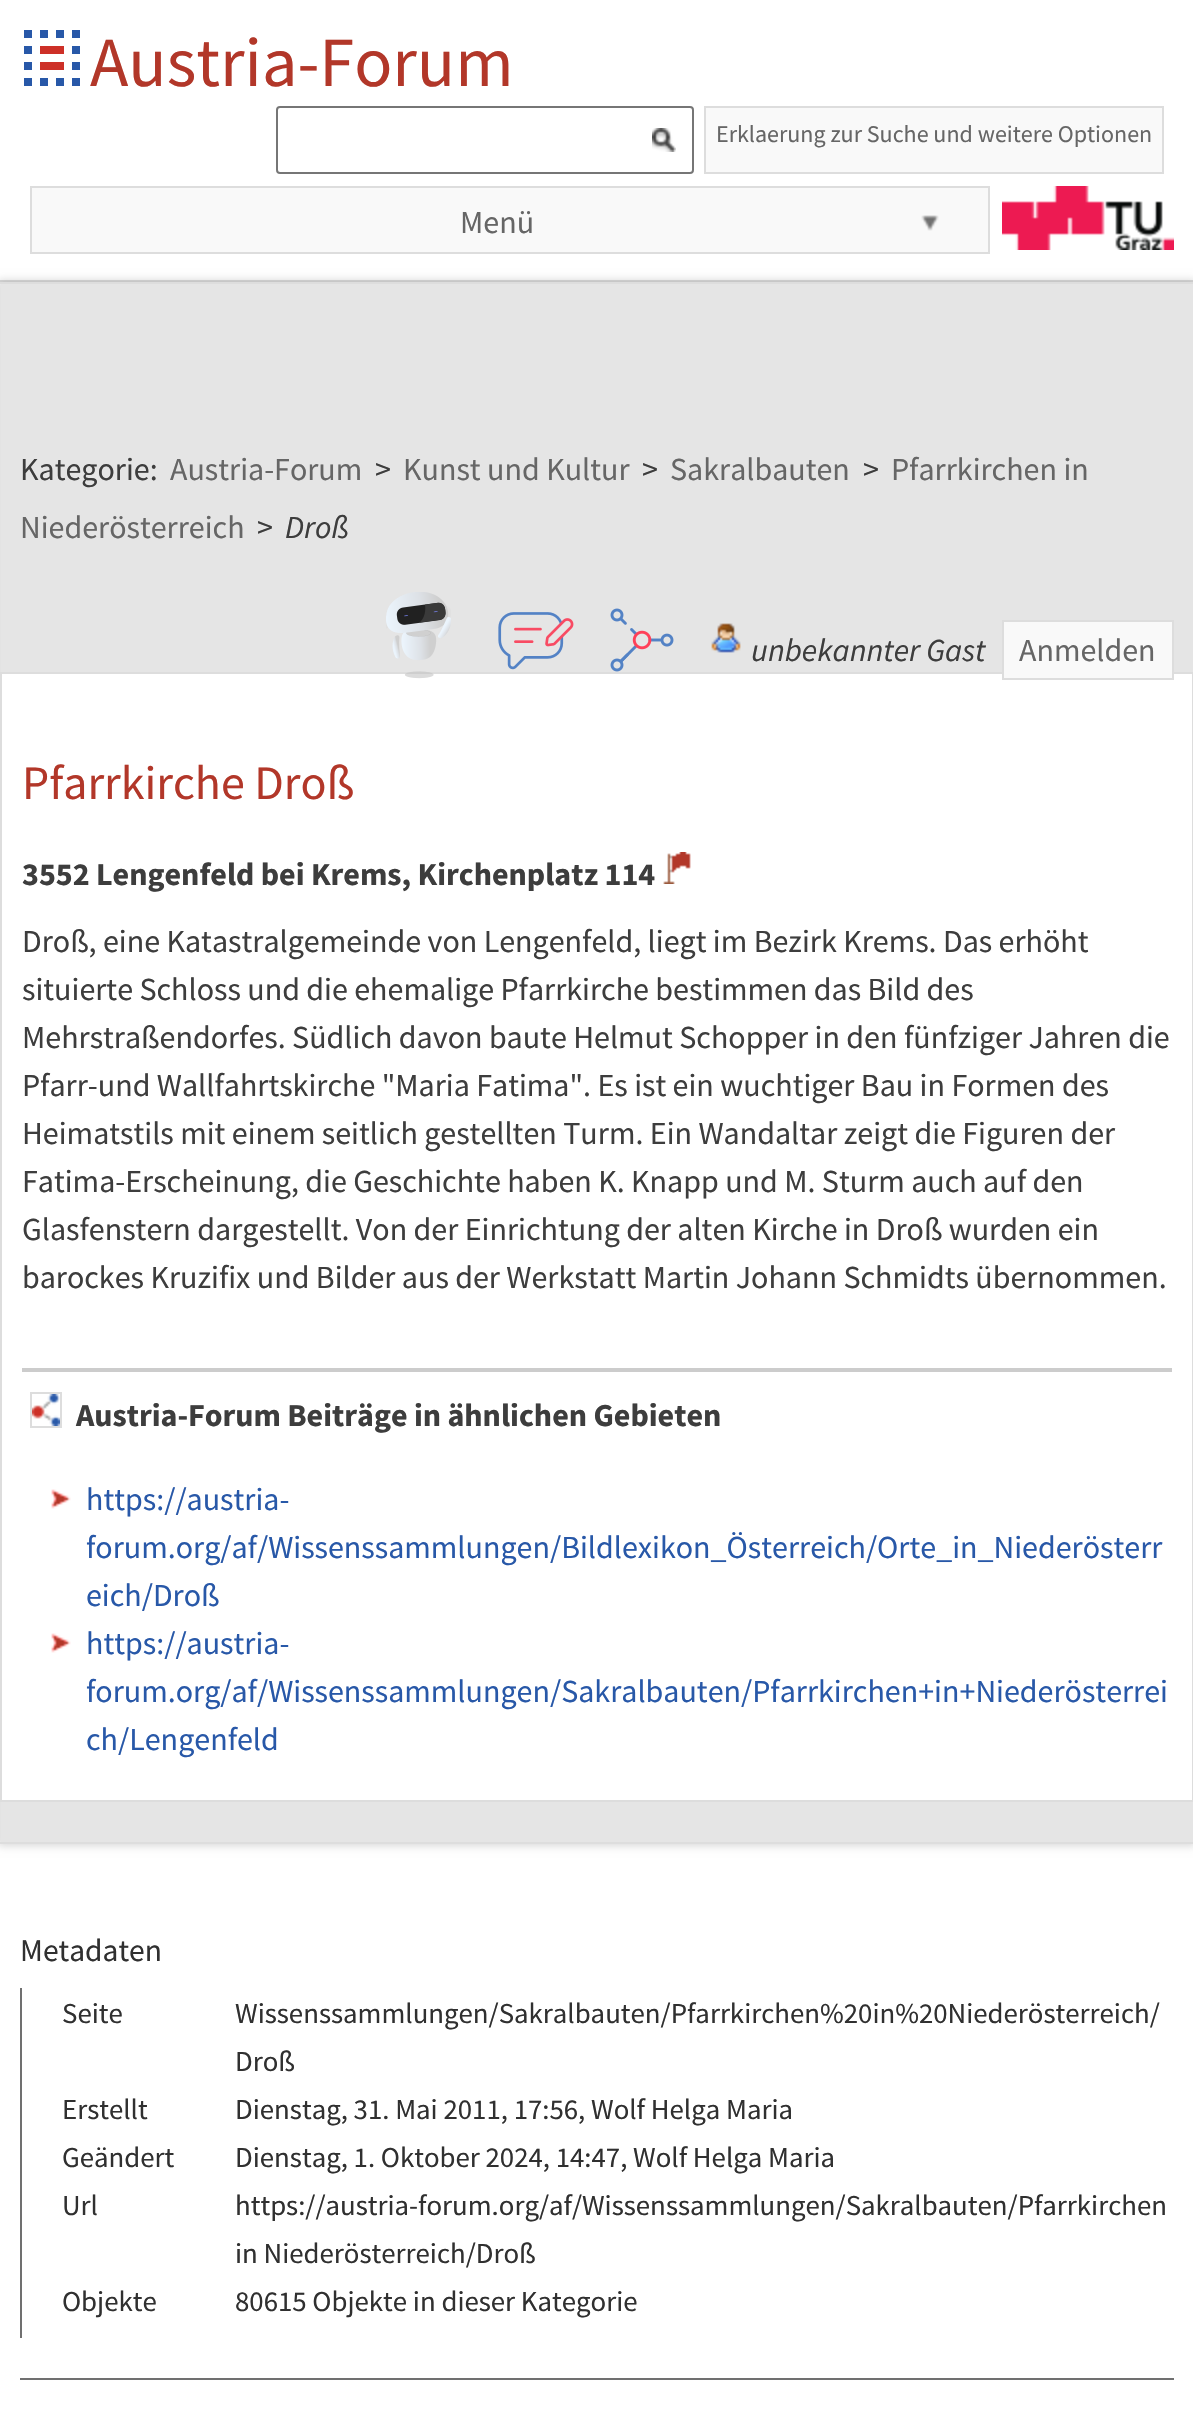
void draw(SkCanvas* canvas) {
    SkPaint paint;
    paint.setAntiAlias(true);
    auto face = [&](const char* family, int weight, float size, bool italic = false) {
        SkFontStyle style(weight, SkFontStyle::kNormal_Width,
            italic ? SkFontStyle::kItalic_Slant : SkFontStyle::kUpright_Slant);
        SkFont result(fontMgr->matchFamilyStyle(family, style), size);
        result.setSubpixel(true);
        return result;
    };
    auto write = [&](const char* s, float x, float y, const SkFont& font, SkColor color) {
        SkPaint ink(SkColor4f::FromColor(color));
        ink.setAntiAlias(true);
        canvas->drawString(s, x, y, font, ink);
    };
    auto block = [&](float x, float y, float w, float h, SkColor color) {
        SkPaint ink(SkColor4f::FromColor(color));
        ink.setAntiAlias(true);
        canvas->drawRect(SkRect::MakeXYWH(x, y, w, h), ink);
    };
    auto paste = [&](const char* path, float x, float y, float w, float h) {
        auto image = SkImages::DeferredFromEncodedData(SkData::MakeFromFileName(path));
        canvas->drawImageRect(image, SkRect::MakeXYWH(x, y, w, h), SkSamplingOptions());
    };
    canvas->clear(SK_ColorWHITE);
    block(0, 280, 1193, 2, SkColorSetRGB(221, 221, 221));
    paste("pic1.png", 24, 30, 56, 56);
    auto kFont1 = face("Source Sans Pro", 400, 70.5f);
    write("Austria-Forum", 90, 86, kFont1, SkColorSetRGB(178, 55, 41));
    paint.setStyle(SkPaint::kStroke_Style);
    paint.setStrokeWidth(2);
    paint.setColor(SkColorSetRGB(118, 118, 118));
    canvas->drawRoundRect(SkRect::MakeXYWH(277, 107, 416, 66), 3, 3, paint);
    paste("pic2.png", 652, 128, 24, 24);
    paint.setStyle(SkPaint::kFill_Style);
    paint.setColor(SkColorSetRGB(249, 249, 249));
    canvas->drawRect(SkRect::MakeXYWH(705, 107, 458, 66), paint);
    paint.setStyle(SkPaint::kStroke_Style);
    paint.setColor(SkColorSetRGB(221, 221, 221));
    canvas->drawRect(SkRect::MakeXYWH(705, 107, 458, 66), paint);
    auto kFont2 = face("Source Sans Pro", 400, 24);
    write("Erklaerung zur Suche und weitere Optionen", 716, 142, kFont2, SkColorSetRGB(102, 102, 102));
    paint.setStyle(SkPaint::kFill_Style);
    paint.setColor(SkColorSetRGB(249, 249, 249));
    canvas->drawRect(SkRect::MakeXYWH(31, 187, 958, 66), paint);
    paint.setStyle(SkPaint::kStroke_Style);
    paint.setColor(SkColorSetRGB(221, 221, 221));
    canvas->drawRect(SkRect::MakeXYWH(31, 187, 958, 66), paint);
    paste("pic3.png", 921, 215, 18, 16);
    auto kFont3 = face("Source Sans Pro", 400, 32);
    write("Menü", 460, 233, kFont3, SkColorSetRGB(102, 102, 102));
    paste("pic4.png", 1002, 186, 172, 64);
    paint.setStyle(SkPaint::kFill_Style);
    paint.setColor(SkColorSetARGB(38, 0, 0, 0));
    paint.setMaskFilter(SkMaskFilter::MakeBlur(kNormal_SkBlurStyle, 4));
    canvas->drawRect(SkRect::MakeXYWH(-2, 280, 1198, 1566), paint);
    paint.setMaskFilter(nullptr);
    block(1, 284, 1192, 1558, SkColorSetRGB(229, 229, 229));
    block(0, 282, 1193, 2, SkColorSetRGB(221, 221, 221));
    block(0, 1842, 1193, 2, SkColorSetRGB(221, 221, 221));
    write("Kategorie:", 20, 480, kFont3, SkColorSetRGB(61, 61, 61));
    write("Austria-Forum", 170, 480, kFont3, SkColorSetRGB(102, 102, 102));
    write(">", 375, 480, kFont3, SkColorSetRGB(61, 61, 61));
    write("Kunst und Kultur", 403, 480, kFont3, SkColorSetRGB(102, 102, 102));
    write(">", 642, 480, kFont3, SkColorSetRGB(61, 61, 61));
    write("Sakralbauten", 670, 480, kFont3, SkColorSetRGB(102, 102, 102));
    write(">", 863, 480, kFont3, SkColorSetRGB(61, 61, 61));
    write("Pfarrkirchen in", 891, 480, kFont3, SkColorSetRGB(102, 102, 102));
    write("Niederösterreich", 20, 538, kFont3, SkColorSetRGB(102, 102, 102));
    write(">", 257, 538, kFont3, SkColorSetRGB(61, 61, 61));
    auto kFont4 = face("Source Sans Pro", 400, 32, true);
    write("Droß", 285, 538, kFont4, SkColorSetRGB(61, 61, 61));
    paint.setColor(SK_ColorWHITE);
    canvas->drawRect(SkRect::MakeXYWH(1, 673, 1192, 1128), paint);
    paint.setStyle(SkPaint::kStroke_Style);
    paint.setColor(SkColorSetRGB(221, 221, 221));
    canvas->drawRect(SkRect::MakeXYWH(1, 673, 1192, 1128), paint);
    paste("pic5.png", 386, 592, 65, 87);
    paste("pic6.png", 498, 612, 76, 58);
    paste("pic7.png", 610, 608, 64, 64);
    paste("pic8.png", 711, 623, 30, 30);
    write("unbekannter Gast", 751, 661, kFont4, SkColorSetRGB(61, 61, 61));
    paint.setStyle(SkPaint::kFill_Style);
    paint.setColor(SkColorSetRGB(249, 249, 249));
    canvas->drawRect(SkRect::MakeXYWH(1003, 621, 170, 58), paint);
    paint.setStyle(SkPaint::kStroke_Style);
    paint.setColor(SkColorSetRGB(221, 221, 221));
    canvas->drawRect(SkRect::MakeXYWH(1003, 621, 170, 58), paint);
    write("Anmelden", 1019, 661, kFont3, SkColorSetRGB(102, 102, 102));
    auto kFont5 = face("Source Sans Pro", 400, 48);
    write("Pfarrkirche Droß", 22, 799, kFont5, SkColorSetRGB(178, 55, 41));
    auto kFont6 = face("Source Sans Pro", 700, 32);
    write("3552 Lengenfeld bei Krems, Kirchenplatz 114", 22, 885, kFont6, SkColorSetRGB(61, 61, 61));
    paste("pic9.png", 663, 852, 28, 32);
    write("Droß, eine Katastralgemeinde von Lengenfeld, liegt im Bezirk Krems. Das erhöht", 22, 952, kFont3, SkColorSetRGB(61, 61, 61));
    write("situierte Schloss und die ehemalige Pfarrkirche bestimmen das Bild des", 22, 1000, kFont3, SkColorSetRGB(61, 61, 61));
    write("Mehrstraßendorfes. Südlich davon baute Helmut Schopper in den fünfziger Jahren die", 22, 1048, kFont3, SkColorSetRGB(61, 61, 61));
    write("Pfarr-und Wallfahrtskirche \"Maria Fatima\". Es ist ein wuchtiger Bau in Formen des", 22, 1096, kFont3, SkColorSetRGB(61, 61, 61));
    write("Heimatstils mit einem seitlich gestellten Turm. Ein Wandaltar zeigt die Figuren der", 22, 1144, kFont3, SkColorSetRGB(61, 61, 61));
    write("Fatima-Erscheinung, die Geschichte haben K. Knapp und M. Sturm auch auf den", 22, 1192, kFont3, SkColorSetRGB(61, 61, 61));
    write("Glasfenstern dargestellt. Von der Einrichtung der alten Kirche in Droß wurden ein", 22, 1240, kFont3, SkColorSetRGB(61, 61, 61));
    write("barockes Kruzifix und Bilder aus der Werkstatt Martin Johann Schmidts übernommen.", 22, 1288, kFont3, SkColorSetRGB(61, 61, 61));
    block(22, 1368, 1150, 4, SkColorSetRGB(204, 204, 204));
    canvas->drawRect(SkRect::MakeXYWH(31, 1393, 30, 34), paint);
    paste("pic10.png", 32, 1394, 28, 32);
    write("Austria-Forum Beiträge in ähnlichen Gebieten", 76, 1426, kFont6, SkColorSetRGB(61, 61, 61));
    paste("pic11.png", 51, 1489, 20, 20);
    write("https://austria-", 86, 1510, kFont3, SkColorSetRGB(40, 88, 168));
    write("forum.org/af/Wissenssammlungen/Bildlexikon_Österreich/Orte_in_Niederösterr", 86, 1558, kFont3, SkColorSetRGB(40, 88, 168));
    write("eich/Droß", 86, 1606, kFont3, SkColorSetRGB(40, 88, 168));
    paste("pic11.png", 51, 1633, 20, 20);
    write("https://austria-", 86, 1654, kFont3, SkColorSetRGB(40, 88, 168));
    write("forum.org/af/Wissenssammlungen/Sakralbauten/Pfarrkirchen+in+Niederösterrei", 86, 1702, kFont3, SkColorSetRGB(40, 88, 168));
    write("ch/Lengenfeld", 86, 1750, kFont3, SkColorSetRGB(40, 88, 168));
    auto kFont7 = face("Source Sans Pro", 400, 31.5f);
    write("Metadaten", 20, 1961, kFont7, SkColorSetRGB(48, 48, 48));
    block(20, 1988, 2, 350, SkColorSetRGB(112, 112, 112));
    auto kFont8 = face("Source Sans Pro", 400, 28.8f);
    write("Seite", 62, 2023, kFont8, SkColorSetRGB(48, 48, 48));
    write("Wissenssammlungen/Sakralbauten/Pfarrkirchen%20in%20Niederösterreich/", 235, 2023, kFont8, SkColorSetRGB(48, 48, 48));
    write("Droß", 235, 2071, kFont8, SkColorSetRGB(48, 48, 48));
    write("Erstellt", 62, 2119, kFont8, SkColorSetRGB(48, 48, 48));
    write("Dienstag, 31. Mai 2011, 17:56, Wolf Helga Maria", 235, 2119, kFont8, SkColorSetRGB(48, 48, 48));
    write("Geändert", 62, 2167, kFont8, SkColorSetRGB(48, 48, 48));
    write("Dienstag, 1. Oktober 2024, 14:47, Wolf Helga Maria", 235, 2167, kFont8, SkColorSetRGB(48, 48, 48));
    write("Url", 62, 2215, kFont8, SkColorSetRGB(48, 48, 48));
    write("https://austria-forum.org/af/Wissenssammlungen/Sakralbauten/Pfarrkirchen", 235, 2215, kFont8, SkColorSetRGB(48, 48, 48));
    write("in Niederösterreich/Droß", 235, 2263, kFont8, SkColorSetRGB(48, 48, 48));
    write("Objekte", 62, 2311, kFont8, SkColorSetRGB(48, 48, 48));
    write("80615 Objekte in dieser Kategorie", 235, 2311, kFont8, SkColorSetRGB(48, 48, 48));
    block(20, 2378, 1154, 2, SkColorSetRGB(112, 112, 112));
}
